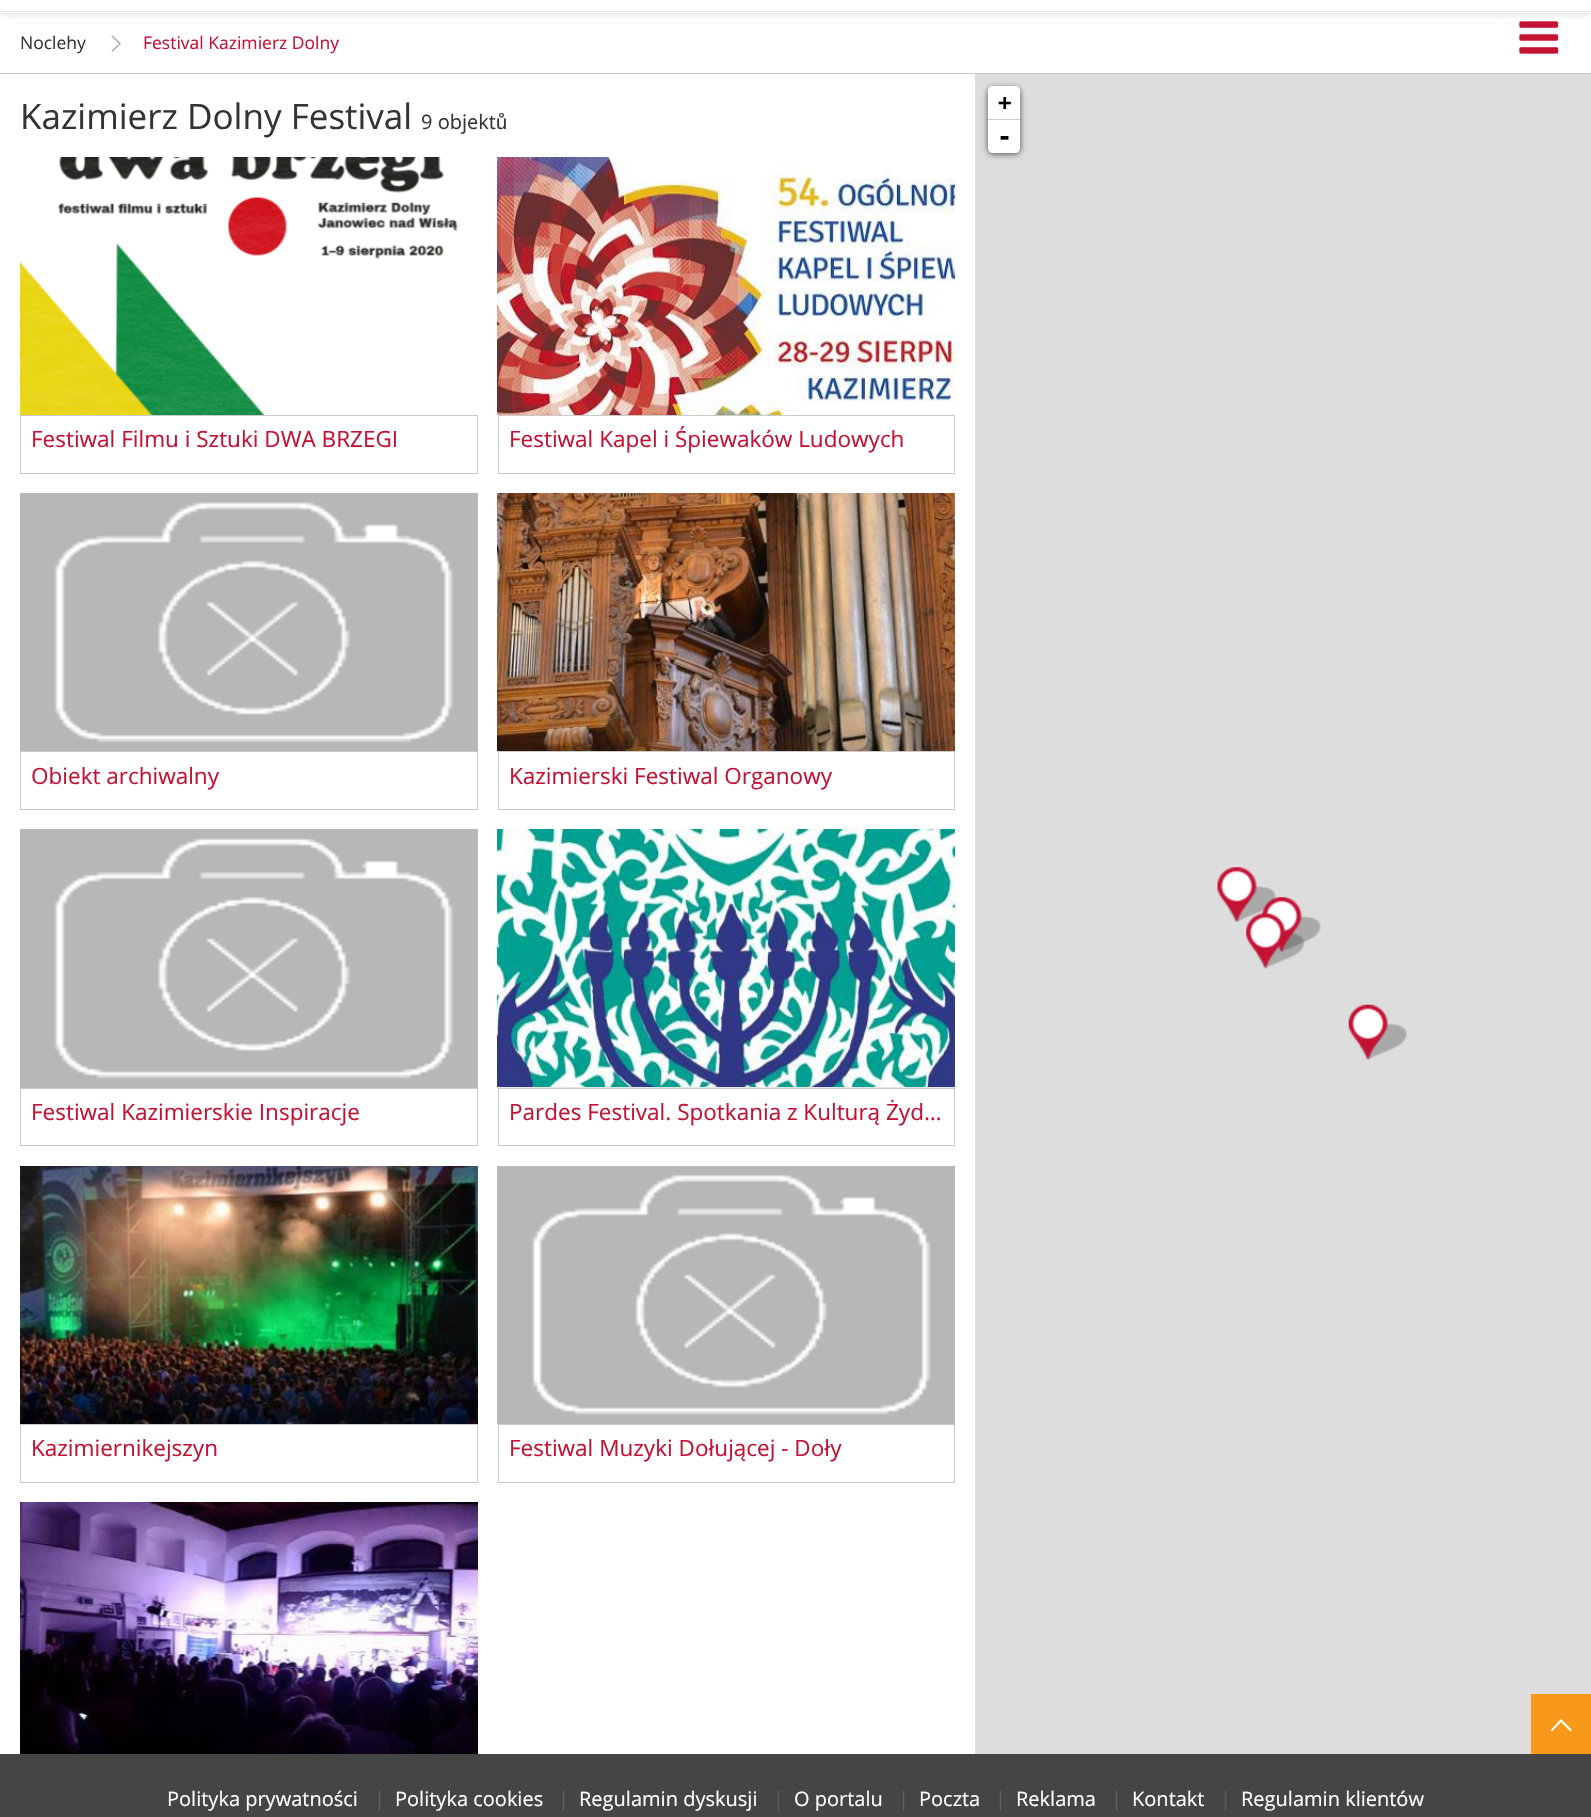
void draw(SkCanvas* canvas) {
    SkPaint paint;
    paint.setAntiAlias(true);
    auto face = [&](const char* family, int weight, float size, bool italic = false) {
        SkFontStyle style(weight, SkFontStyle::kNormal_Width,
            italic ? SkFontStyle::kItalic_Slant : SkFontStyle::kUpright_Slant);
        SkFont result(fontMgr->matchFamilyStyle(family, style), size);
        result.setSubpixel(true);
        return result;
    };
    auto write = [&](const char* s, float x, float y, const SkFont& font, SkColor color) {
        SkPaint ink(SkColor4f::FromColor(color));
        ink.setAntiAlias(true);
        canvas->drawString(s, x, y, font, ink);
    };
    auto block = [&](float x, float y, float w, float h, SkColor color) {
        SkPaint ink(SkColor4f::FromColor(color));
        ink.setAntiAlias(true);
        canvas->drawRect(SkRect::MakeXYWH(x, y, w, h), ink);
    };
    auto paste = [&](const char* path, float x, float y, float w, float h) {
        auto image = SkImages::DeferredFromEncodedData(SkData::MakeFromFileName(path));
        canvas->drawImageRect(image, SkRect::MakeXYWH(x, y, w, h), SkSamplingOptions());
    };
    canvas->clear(SK_ColorWHITE);
    paint.setColor(SkColorSetARGB(51, 22, 34, 42));
    paint.setMaskFilter(SkMaskFilter::MakeBlur(kNormal_SkBlurStyle, 4));
    canvas->drawRect(SkRect::MakeXYWH(0, -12, 1591, 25), paint);
    paint.setMaskFilter(nullptr);
    block(0, 0, 1591, 13, SK_ColorWHITE);
    block(0, 11, 1591, 1, SkColorSetRGB(229, 229, 229));
    paste("pic1.png", 1519, 21, 40, 33);
    auto kFont1 = face("Open Sans", 400, 17.5f);
    write("Noclehy", 20, 49, kFont1, SkColorSetRGB(52, 52, 52));
    paste("pic2.png", 111, 35, 10, 17);
    write("Festival Kazimierz Dolny", 143, 49, kFont1, SkColorSetRGB(196, 18, 52));
    block(0, 73, 1591, 1, SkColorSetRGB(202, 202, 202));
    auto kFont2 = face("Open Sans", 400, 35);
    write("Kazimierz Dolny Festival", 20, 129, kFont2, SkColorSetRGB(52, 52, 52));
    auto kFont3 = face("Open Sans", 400, 20);
    write("9 objekt", 421, 129, kFont3, SkColorSetRGB(52, 52, 52));
    auto kFont4 = face("Liberation Sans", 400, 20);
    write("ů", 496, 129, kFont4, SkColorSetRGB(52, 52, 52));
    paste("pic3.png", 20, 157, 458, 258);
    paint.setStyle(SkPaint::kStroke_Style);
    paint.setStrokeWidth(1);
    paint.setColor(SkColorSetRGB(202, 202, 202));
    canvas->drawRect(SkRect::MakeXYWH(20.5f, 415.5f, 457, 58), paint);
    auto kFont5 = face("Open Sans", 400, 22.5f);
    write("Festiwal Filmu i Sztuki DWA BRZEGI", 31, 447, kFont5, SkColorSetRGB(196, 18, 52));
    paste("pic4.png", 497, 157, 458, 258);
    canvas->drawRect(SkRect::MakeXYWH(498.5f, 415.5f, 456, 58), paint);
    write("Festiwal Kapel i Śpiewaków Ludowych", 509, 447, kFont5, SkColorSetRGB(196, 18, 52));
    paste("pic5.png", 20, 493, 458, 258);
    canvas->drawRect(SkRect::MakeXYWH(20.5f, 751.5f, 457, 58), paint);
    write("Obiekt archiwalny", 31, 784, kFont5, SkColorSetRGB(196, 18, 52));
    paste("pic6.png", 497, 493, 458, 258);
    canvas->drawRect(SkRect::MakeXYWH(498.5f, 751.5f, 456, 58), paint);
    write("Kazimierski Festiwal Organowy", 509, 784, kFont5, SkColorSetRGB(196, 18, 52));
    paste("pic7.png", 20, 829, 458, 259);
    canvas->drawRect(SkRect::MakeXYWH(20.5f, 1088.5f, 457, 57), paint);
    write("Festiwal Kazimierskie Inspiracje", 31, 1120, kFont5, SkColorSetRGB(196, 18, 52));
    block(498, 1087, 457, 1, SkColorSetRGB(229, 229, 229));
    paste("pic8.png", 497, 829, 458, 258);
    canvas->drawRect(SkRect::MakeXYWH(498.5f, 1088.5f, 456, 57), paint);
    write("Pardes Festival. Spotkania z Kulturą Żyd…", 509, 1120, kFont5, SkColorSetRGB(196, 18, 52));
    paste("pic9.png", 20, 1166, 458, 258);
    canvas->drawRect(SkRect::MakeXYWH(20.5f, 1424.5f, 457, 58), paint);
    write("Kazimiernikejszyn", 31, 1456, kFont5, SkColorSetRGB(196, 18, 52));
    paste("pic10.png", 497, 1166, 458, 258);
    canvas->drawRect(SkRect::MakeXYWH(498.5f, 1424.5f, 456, 58), paint);
    write("Festiwal Muzyki Dołującej - Doły", 509, 1456, kFont5, SkColorSetRGB(196, 18, 52));
    paste("pic11.png", 20, 1502, 458, 252);
    block(975, 74, 616, 1680, SkColorSetRGB(221, 221, 221));
    paint.setStyle(SkPaint::kFill_Style);
    paint.setColor(SkColorSetARGB(166, 0, 0, 0));
    paint.setMaskFilter(SkMaskFilter::MakeBlur(kNormal_SkBlurStyle, 3));
    canvas->drawRoundRect(SkRect::MakeXYWH(988, 88, 32, 66), 5, 5, paint);
    paint.setMaskFilter(nullptr);
    paint.setColor(SK_ColorWHITE);
    canvas->drawPath(SkPathBuilder().moveTo(993, 86).lineTo(1015, 86).cubicTo(1018, 86, 1020, 88, 1020, 91).lineTo(1020, 120).lineTo(988, 120).lineTo(988, 91).cubicTo(988, 88, 990, 86, 993, 86).close().detach(), paint);
    block(988, 119, 32, 1, SkColorSetRGB(204, 204, 204));
    auto kFont6 = face("DejaVu Sans Mono", 700, 22.5f);
    write("+", 998, 110, kFont6, SK_ColorBLACK);
    canvas->drawPath(SkPathBuilder().moveTo(988, 120).lineTo(1020, 120).lineTo(1020, 148).cubicTo(1020, 151, 1018, 153, 1015, 153).lineTo(993, 153).cubicTo(990, 153, 988, 151, 988, 148).close().detach(), paint);
    auto kFont7 = face("DejaVu Sans Mono", 700, 25);
    write("-", 997, 145, kFont7, SK_ColorBLACK);
    paste("pic16.png", 1228, 886, 48, 37);
    paste("pic12.png", 1217, 867, 40, 55);
    paste("pic18.png", 1257, 933, 48, 36);
    paste("pic17.png", 1277, 916, 44, 37);
    paste("pic13.png", 1262, 897, 40, 55);
    paste("pic14.png", 1246, 913, 40, 55);
    paste("pic19.png", 1359, 1023, 48, 38);
    paste("pic15.png", 1348, 1004, 40, 55);
    block(1531, 1694, 60, 60, SkColorSetRGB(247, 153, 27));
    canvas->drawPath(SkPathBuilder().moveTo(1570.5f, 1731.5f).lineTo(1572, 1730).lineTo(1561, 1719).lineTo(1550.5f, 1730).lineTo(1552, 1731.5f).lineTo(1561, 1722).close().detach(), paint);
    block(0, 1754, 1591, 63, SkColorSetRGB(69, 69, 69));
    write("Polityka prywatności", 167, 1806, kFont3, SK_ColorWHITE);
    write("|", 374, 1806, kFont3, SkColorSetRGB(94, 94, 94));
    write("Polityka cookies", 395, 1806, kFont3, SK_ColorWHITE);
    write("|", 558, 1806, kFont3, SkColorSetRGB(94, 94, 94));
    write("Regulamin dyskusji", 579, 1806, kFont3, SK_ColorWHITE);
    write("|", 773, 1806, kFont3, SkColorSetRGB(94, 94, 94));
    write("O portalu", 794, 1806, kFont3, SK_ColorWHITE);
    write("|", 898, 1806, kFont3, SkColorSetRGB(94, 94, 94));
    write("Poczta", 919, 1806, kFont3, SK_ColorWHITE);
    write("|", 995, 1806, kFont3, SkColorSetRGB(94, 94, 94));
    write("Reklama", 1016, 1806, kFont3, SK_ColorWHITE);
    write("|", 1111, 1806, kFont3, SkColorSetRGB(94, 94, 94));
    write("Kontakt", 1132, 1806, kFont3, SK_ColorWHITE);
    write("|", 1220, 1806, kFont3, SkColorSetRGB(94, 94, 94));
    write("Regulamin klientów", 1241, 1806, kFont3, SK_ColorWHITE);
}
